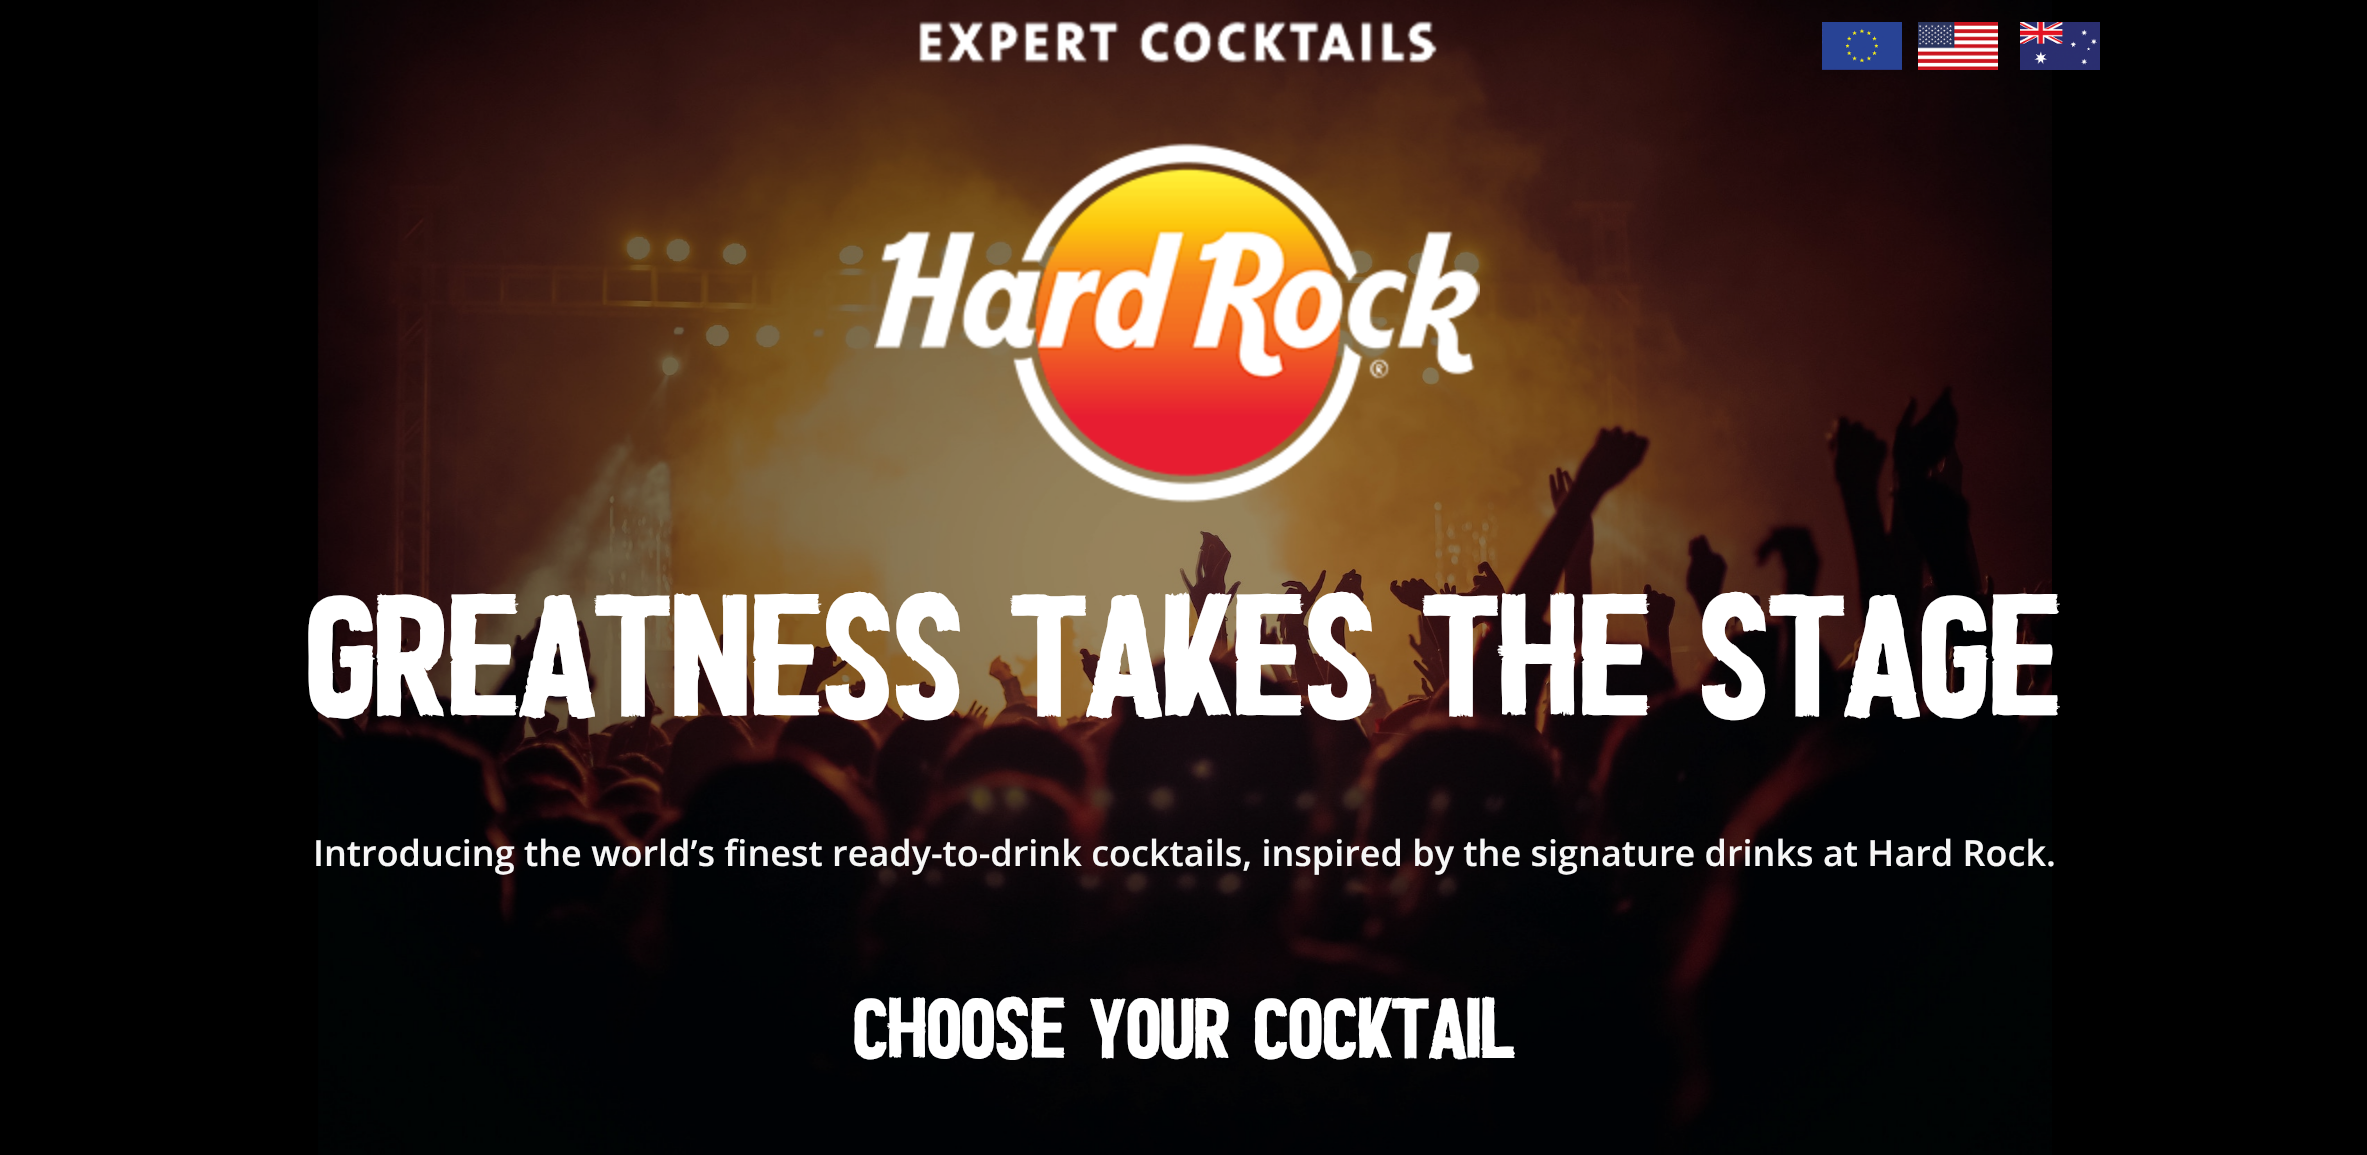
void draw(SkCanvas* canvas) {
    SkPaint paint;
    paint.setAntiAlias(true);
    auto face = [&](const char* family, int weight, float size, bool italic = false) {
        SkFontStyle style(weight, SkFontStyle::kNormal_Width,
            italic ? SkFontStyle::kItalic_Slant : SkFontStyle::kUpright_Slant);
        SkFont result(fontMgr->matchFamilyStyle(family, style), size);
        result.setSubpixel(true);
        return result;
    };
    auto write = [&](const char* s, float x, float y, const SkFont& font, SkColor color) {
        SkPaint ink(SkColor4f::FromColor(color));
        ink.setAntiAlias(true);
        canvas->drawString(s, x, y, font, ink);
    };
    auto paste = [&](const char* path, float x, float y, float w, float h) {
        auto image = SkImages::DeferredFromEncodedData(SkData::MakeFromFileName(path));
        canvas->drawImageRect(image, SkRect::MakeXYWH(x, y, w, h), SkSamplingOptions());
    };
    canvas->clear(SK_ColorBLACK);
    paste("pic1.png", 317, 0, 1735, 1155);
    paste("pic2.png", 874, 21, 606, 482);
    paste("pic3.png", 1822, 22, 80, 48);
    paste("pic4.png", 1918, 22, 80, 48);
    paste("pic5.png", 2020, 22, 80, 48);
    auto kFont1 = face("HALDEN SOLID", 400, 170);
    write("Greatness Takes The Stage", 307, 716, kFont1, SK_ColorWHITE);
    auto kFont2 = face("Open Sans", 600, 36);
    write("Introducing the world’s finest ready-to-drink cocktails, inspired by the signature drinks at Hard Rock.", 313, 866, kFont2, SkColorSetRGB(247, 247, 247));
    auto kFont3 = face("HALDEN SOLID", 400, 84);
    write("Choose Your Cocktail", 853, 1058, kFont3, SK_ColorWHITE);
}
